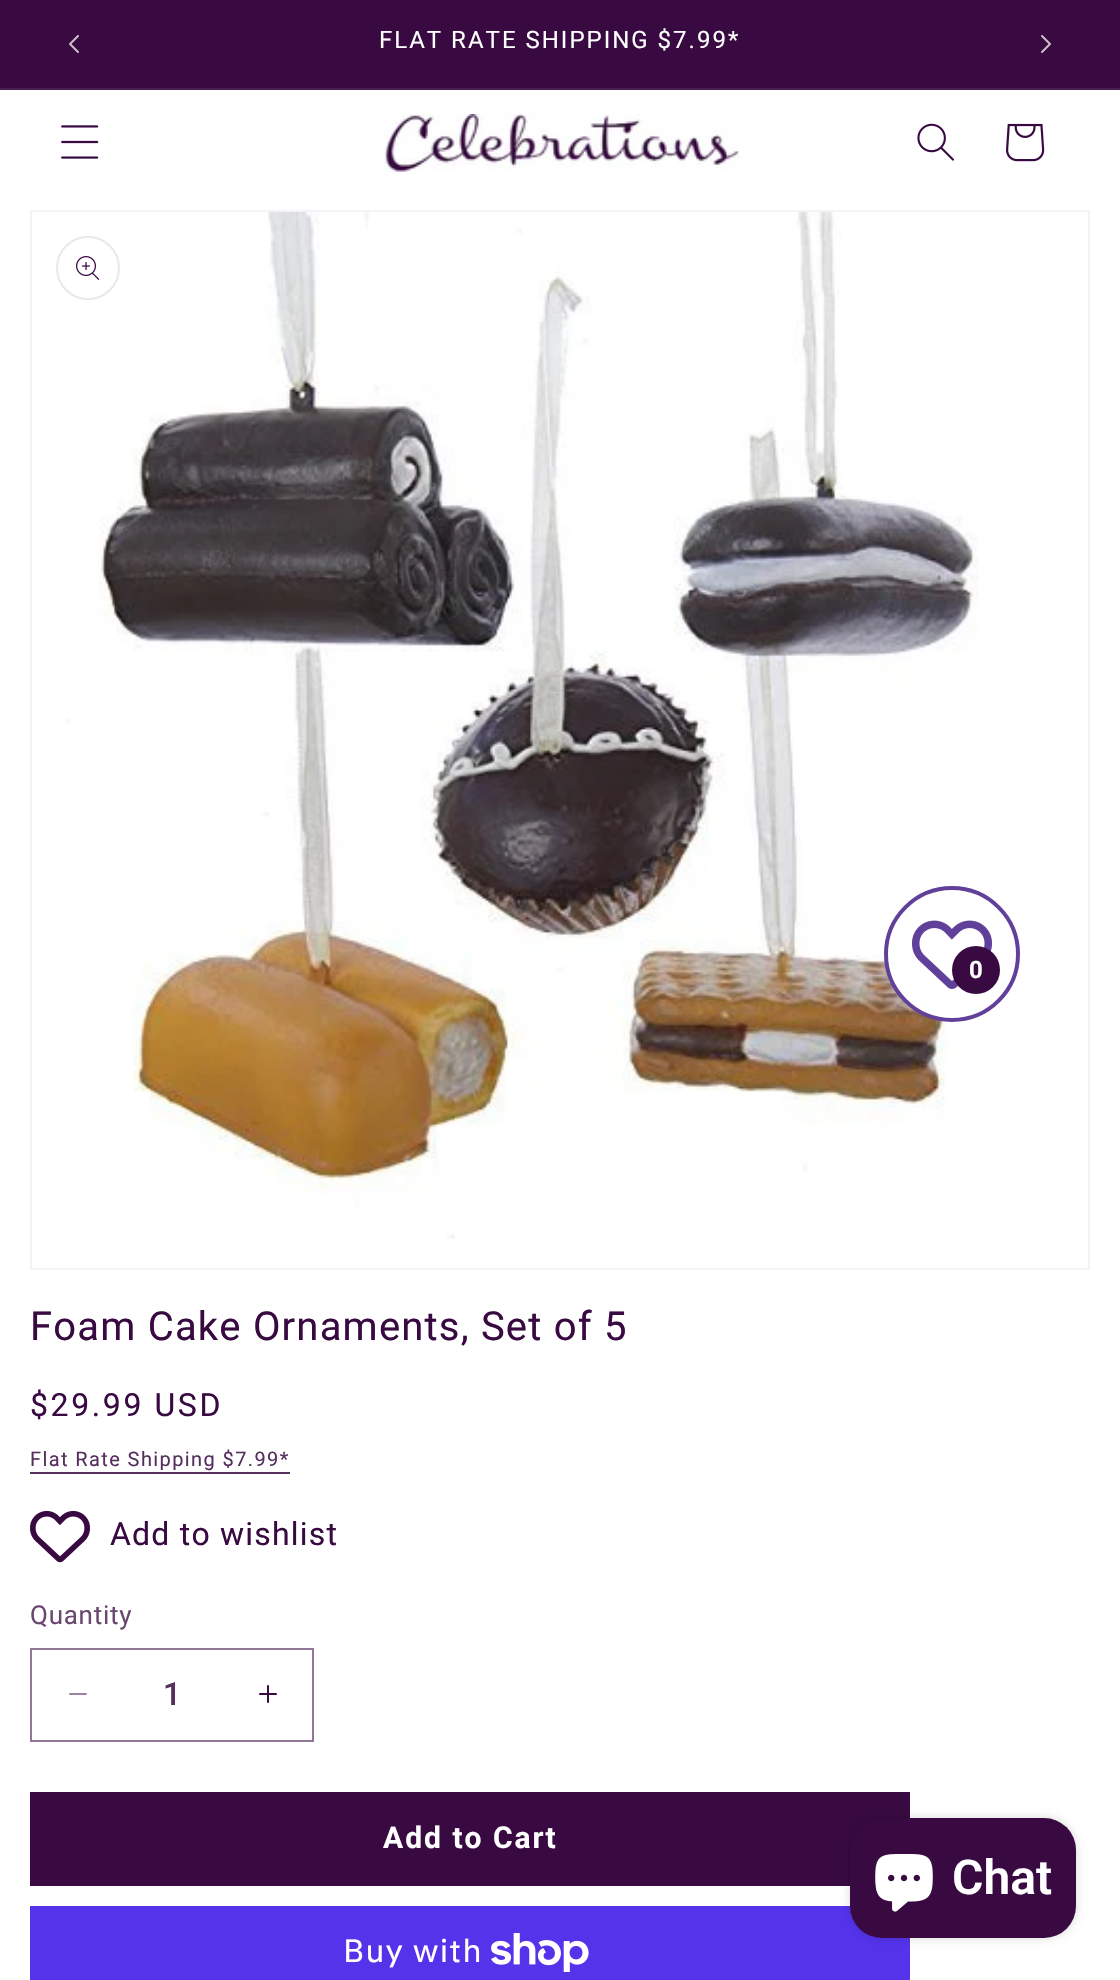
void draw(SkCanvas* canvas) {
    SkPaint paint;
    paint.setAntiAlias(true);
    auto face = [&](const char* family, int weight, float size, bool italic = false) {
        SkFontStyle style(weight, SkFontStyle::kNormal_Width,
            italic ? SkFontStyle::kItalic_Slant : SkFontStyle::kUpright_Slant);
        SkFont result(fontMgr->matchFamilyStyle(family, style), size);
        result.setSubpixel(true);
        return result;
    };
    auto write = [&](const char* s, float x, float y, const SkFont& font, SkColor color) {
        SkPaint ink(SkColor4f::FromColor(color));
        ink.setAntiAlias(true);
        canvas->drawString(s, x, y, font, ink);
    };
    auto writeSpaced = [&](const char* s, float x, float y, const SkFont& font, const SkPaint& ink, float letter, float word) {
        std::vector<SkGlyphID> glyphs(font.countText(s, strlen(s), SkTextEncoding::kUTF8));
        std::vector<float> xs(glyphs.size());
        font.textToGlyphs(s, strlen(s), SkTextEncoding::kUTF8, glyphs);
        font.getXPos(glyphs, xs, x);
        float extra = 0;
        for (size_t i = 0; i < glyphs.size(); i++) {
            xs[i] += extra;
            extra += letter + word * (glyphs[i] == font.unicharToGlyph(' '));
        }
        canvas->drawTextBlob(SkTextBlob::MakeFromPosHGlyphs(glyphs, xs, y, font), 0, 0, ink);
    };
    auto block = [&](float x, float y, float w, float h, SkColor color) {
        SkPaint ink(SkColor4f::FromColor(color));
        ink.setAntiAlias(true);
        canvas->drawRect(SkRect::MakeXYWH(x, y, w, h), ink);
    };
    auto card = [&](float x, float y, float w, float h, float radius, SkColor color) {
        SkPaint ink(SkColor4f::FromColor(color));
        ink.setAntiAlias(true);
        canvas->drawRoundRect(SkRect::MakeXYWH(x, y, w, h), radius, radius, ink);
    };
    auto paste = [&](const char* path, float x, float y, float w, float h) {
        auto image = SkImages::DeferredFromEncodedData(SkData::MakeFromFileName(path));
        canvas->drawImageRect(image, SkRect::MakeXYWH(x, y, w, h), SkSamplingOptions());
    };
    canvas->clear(SK_ColorWHITE);
    block(0, 0, 1120, 88, SkColorSetRGB(56, 10, 65));
    block(0, 88, 1120, 2, SkColorSetRGB(72, 30, 80));
    paste("pic1.png", 69, 35, 10, 18);
    auto kFont1 = face("Roboto", 400, 24);
    paint.setColor(SK_ColorWHITE);
    writeSpaced("FLAT RATE SHIPPING $7.99*", 379, 48, kFont1, paint, 2, 0);
    paste("pic2.png", 1041, 35, 10, 18);
    paste("pic3.png", 61, 125, 38, 34);
    paste("pic4.png", 384, 114, 356, 58);
    paste("pic5.png", 917, 123, 37, 38);
    paste("pic6.png", 1006, 123, 39, 39);
    paint.setStyle(SkPaint::kStroke_Style);
    paint.setStrokeWidth(2);
    paint.setColor(SkColorSetRGB(245, 243, 246));
    canvas->drawRect(SkRect::MakeXYWH(31, 211, 1058, 1058), paint);
    paste("pic8.png", 66, 212, 913, 1027);
    paint.setStyle(SkPaint::kFill_Style);
    paint.setColor(SK_ColorWHITE);
    canvas->drawCircle(952, 954, 66, paint);
    paint.setStyle(SkPaint::kStroke_Style);
    paint.setStrokeWidth(4);
    paint.setColor(SkColorSetRGB(96, 64, 153));
    canvas->drawCircle(952, 954, 66, paint);
    paste("pic7.png", 912, 920, 80, 69);
    paint.setStyle(SkPaint::kFill_Style);
    paint.setColor(SkColorSetRGB(56, 10, 65));
    canvas->drawCircle(976, 970, 24, paint);
    auto kFont2 = face("Roboto", 700, 24);
    paint.setColor(SK_ColorWHITE);
    writeSpaced("0", 969, 978, kFont2, paint, 1.2f, 0);
    paint.setStyle(SkPaint::kStroke_Style);
    paint.setStrokeWidth(2);
    paint.setColor(SkColorSetRGB(235, 231, 236));
    canvas->drawCircle(88, 268, 31, paint);
    paste("pic9.png", 76, 256, 24, 24);
    auto kFont3 = face("Roboto", 400, 40);
    paint.setStyle(SkPaint::kFill_Style);
    paint.setColor(SkColorSetRGB(56, 10, 65));
    writeSpaced("Foam Cake Ornaments, Set of 5", 30, 1340, kFont3, paint, 1.2f, 0);
    auto kFont4 = face("Roboto", 400, 32);
    writeSpaced("$29.99 USD", 30, 1416, kFont4, paint, 2.6f, 0);
    auto kFont5 = face("Roboto", 400, 20);
    paint.setColor(SkColorSetRGB(86, 47, 94));
    writeSpaced("Flat Rate Shipping $7.99*", 30, 1466, kFont5, paint, 1.4f, 0);
    block(30, 1472, 260, 2, SkColorSetRGB(86, 47, 94));
    paste("pic10.png", 30, 1510, 60, 53);
    paint.setColor(SkColorSetRGB(56, 10, 65));
    writeSpaced("Add to wishlist", 110, 1545, kFont4, paint, 1.2f, 0);
    auto kFont6 = face("Roboto", 400, 26);
    paint.setColor(SkColorSetRGB(106, 71, 113));
    writeSpaced("Quantity", 30, 1624, kFont6, paint, 0.75f, 0);
    paste("pic11.png", 69, 1693, 18, 2);
    paste("pic12.png", 259, 1685, 18, 18);
    paint.setStyle(SkPaint::kStroke_Style);
    paint.setColor(SkColorSetRGB(146, 120, 151));
    canvas->drawRect(SkRect::MakeXYWH(31, 1649, 282, 92), paint);
    auto kFont7 = face("Roboto", 500, 32);
    write("1", 163, 1705, kFont7, SkColorSetRGB(86, 47, 94));
    block(32, 1794, 876, 90, SkColorSetRGB(56, 10, 65));
    paint.setColor(SkColorSetRGB(56, 10, 65));
    canvas->drawRect(SkRect::MakeXYWH(31, 1793, 878, 92), paint);
    auto kFont8 = face("Roboto", 700, 30);
    paint.setStyle(SkPaint::kFill_Style);
    paint.setColor(SK_ColorWHITE);
    writeSpaced("Add to Cart", 383, 1848, kFont8, paint, 2, 0);
    block(30, 1906, 880, 74, SkColorSetRGB(84, 51, 235));
    auto kFont9 = face("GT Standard", 400, 32);
    writeSpaced("Buy with", 343, 1962, kFont9, paint, 1.2f, 0);
    paste("pic13.png", 491, 1933, 98, 39);
    paint.setColor(SkColorSetARGB(38, 0, 0, 0));
    paint.setMaskFilter(SkMaskFilter::MakeBlur(kNormal_SkBlurStyle, 5));
    canvas->drawRoundRect(SkRect::MakeXYWH(850, 1818, 226, 120), 32, 32, paint);
    paint.setMaskFilter(nullptr);
    card(850, 1818, 226, 120, 32, SkColorSetRGB(56, 10, 65));
    paste("pic14.png", 875, 1854, 58, 58);
    auto kFont10 = face("Roboto", 600, 48);
    write("Chat", 952, 1894, kFont10, SK_ColorWHITE);
}
